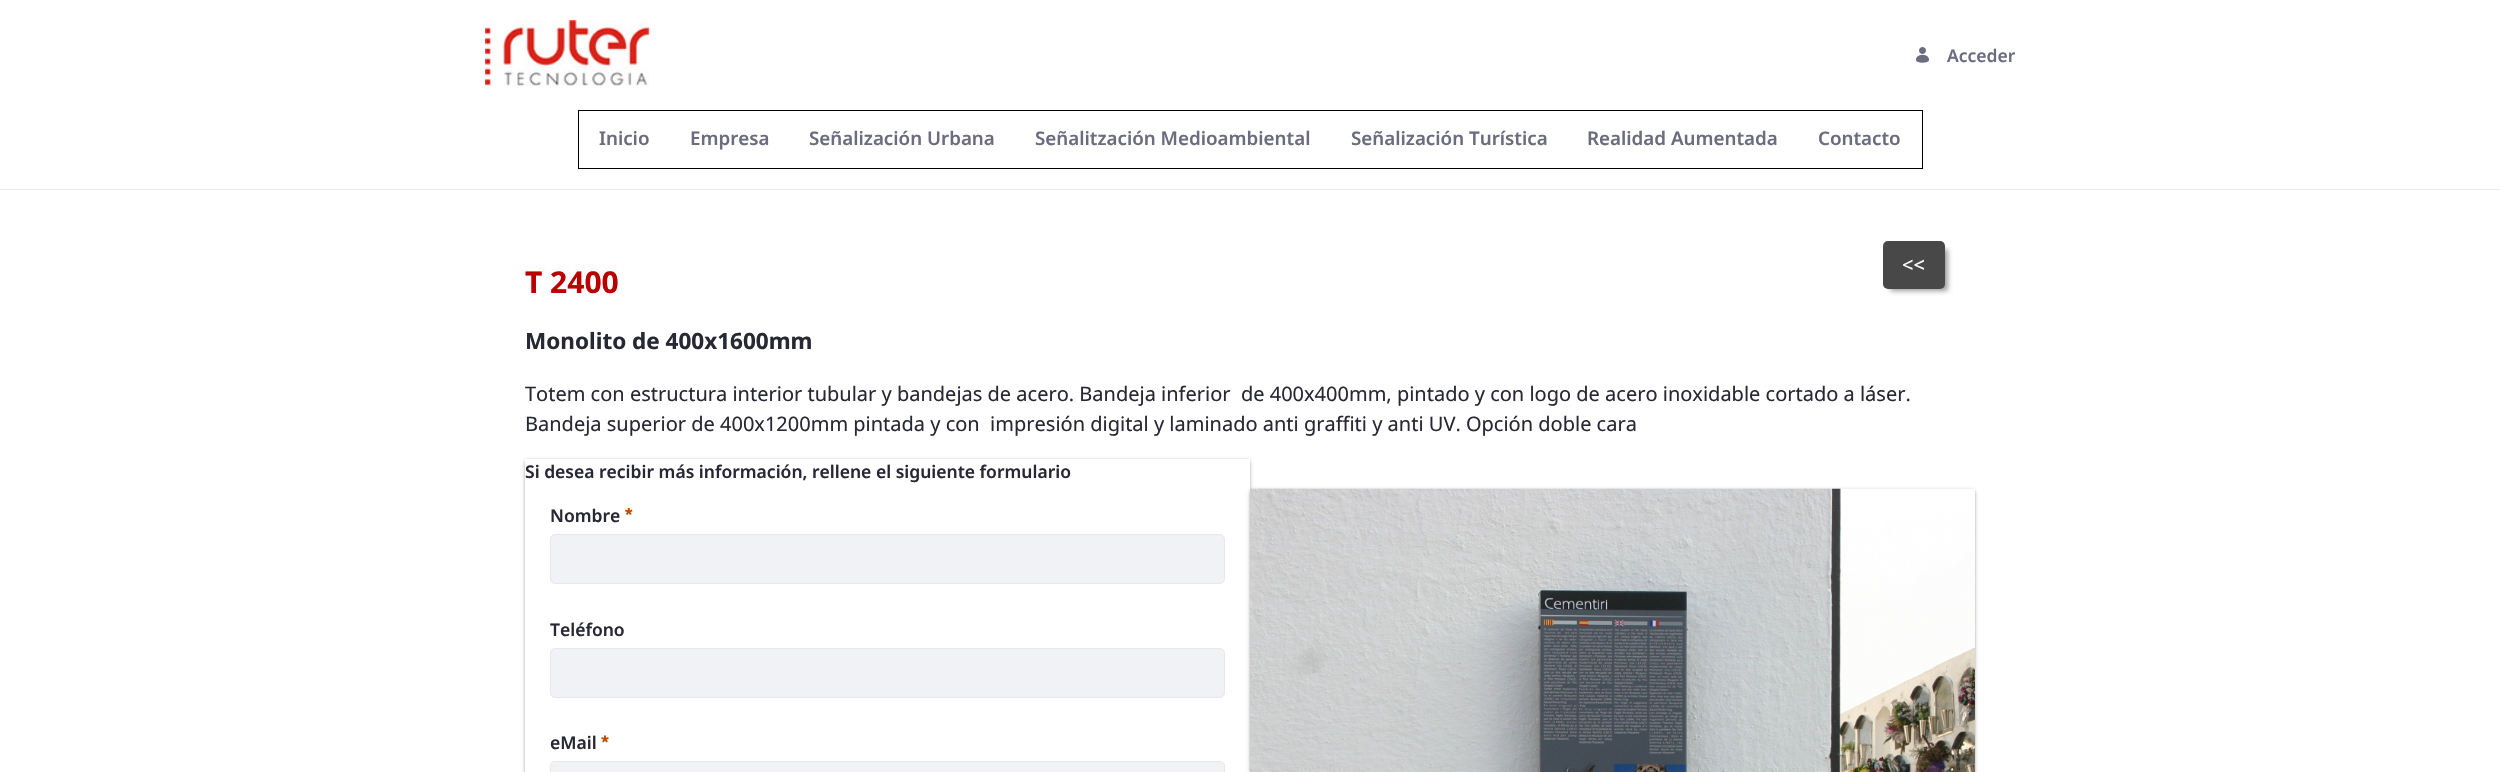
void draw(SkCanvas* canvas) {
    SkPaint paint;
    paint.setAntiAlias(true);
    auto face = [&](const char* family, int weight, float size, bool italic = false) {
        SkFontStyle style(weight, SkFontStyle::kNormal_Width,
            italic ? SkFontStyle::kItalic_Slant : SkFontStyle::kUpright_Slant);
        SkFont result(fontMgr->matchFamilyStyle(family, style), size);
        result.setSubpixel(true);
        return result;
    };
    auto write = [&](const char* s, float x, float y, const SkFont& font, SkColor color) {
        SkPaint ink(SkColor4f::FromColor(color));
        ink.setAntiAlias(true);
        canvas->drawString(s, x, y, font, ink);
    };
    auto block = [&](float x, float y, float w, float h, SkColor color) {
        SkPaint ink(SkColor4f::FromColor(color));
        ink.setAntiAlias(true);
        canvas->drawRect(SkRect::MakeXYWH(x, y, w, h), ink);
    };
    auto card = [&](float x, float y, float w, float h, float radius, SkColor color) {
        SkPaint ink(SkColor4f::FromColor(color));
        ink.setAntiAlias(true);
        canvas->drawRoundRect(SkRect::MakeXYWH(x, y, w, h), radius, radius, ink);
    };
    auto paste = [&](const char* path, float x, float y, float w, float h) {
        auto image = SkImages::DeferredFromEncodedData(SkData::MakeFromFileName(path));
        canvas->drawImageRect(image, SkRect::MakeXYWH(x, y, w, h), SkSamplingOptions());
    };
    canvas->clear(SK_ColorWHITE);
    paste("pic1.png", 485, 20, 165, 66);
    paste("pic2.png", 1916, 47, 13, 16);
    auto kFont1 = face("Noto Sans", 600, 17.5f);
    write("Acceder", 1947, 62, kFont1, SkColorSetRGB(107, 108, 126));
    block(0, 189, 2500, 1, SkColorSetRGB(231, 231, 237));
    paint.setStyle(SkPaint::kStroke_Style);
    paint.setStrokeWidth(1);
    paint.setColor(SK_ColorBLACK);
    canvas->drawRect(SkRect::MakeXYWH(578.5f, 110.5f, 1344, 58), paint);
    auto kFont2 = face("Noto Sans", 600, 18.75f);
    write("Inicio", 599, 145, kFont2, SkColorSetRGB(107, 108, 126));
    write("Empresa", 690, 145, kFont2, SkColorSetRGB(107, 108, 126));
    write("Señalización Urbana", 809, 145, kFont2, SkColorSetRGB(107, 108, 126));
    write("Señalitzación Medioambiental", 1035, 145, kFont2, SkColorSetRGB(107, 108, 126));
    write("Señalización Turística", 1351, 145, kFont2, SkColorSetRGB(107, 108, 126));
    write("Realidad Aumentada", 1587, 145, kFont2, SkColorSetRGB(107, 108, 126));
    write("Contacto", 1818, 145, kFont2, SkColorSetRGB(107, 108, 126));
    paint.setStyle(SkPaint::kFill_Style);
    paint.setColor(SkColorSetARGB(97, 0, 0, 0));
    paint.setMaskFilter(SkMaskFilter::MakeBlur(kNormal_SkBlurStyle, 2.5f));
    canvas->drawRoundRect(SkRect::MakeXYWH(1890, 249, 58, 42), 2.5f, 2.5f, paint);
    paint.setMaskFilter(nullptr);
    card(1883, 241, 62, 48, 5, SkColorSetRGB(72, 72, 72));
    auto kFont3 = face("Noto Sans", 400, 20);
    write("<<", 1902, 272, kFont3, SK_ColorWHITE);
    auto kFont4 = face("Noto Sans", 700, 30);
    write("T 2400", 525, 293, kFont4, SkColorSetRGB(187, 0, 0));
    auto kFont5 = face("Noto Sans", 700, 22.5f);
    write("Monolito de 400x1600mm", 525, 349, kFont5, SkColorSetRGB(39, 40, 51));
    write("Totem con estructura interior tubular y bandejas de acero. Bandeja inferior  de 400x400mm, pintado y con logo de acero inoxidable cortado a láser.", 525, 401, kFont3, SkColorSetRGB(39, 40, 51));
    write("Bandeja superior de 400x1200mm pintada y con  impresión digital y laminado anti graffiti y anti UV. Opción doble cara", 525, 431, kFont3, SkColorSetRGB(39, 40, 51));
    canvas->save();
    canvas->clipPath(SkPathBuilder(SkPathFillType::kEvenOdd).moveTo(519, 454).lineTo(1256, 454).lineTo(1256, 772).lineTo(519, 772).close().moveTo(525, 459).lineTo(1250, 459).lineTo(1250, 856).lineTo(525, 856).close().detach(), true);
    paint.setColor(SkColorSetARGB(153, 0, 0, 0));
    paint.setMaskFilter(SkMaskFilter::MakeBlur(kNormal_SkBlurStyle, 2));
    canvas->drawRect(SkRect::MakeXYWH(526, 461, 723, 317), paint);
    paint.setMaskFilter(nullptr);
    canvas->restore();
    write("Si desea recibir más información, rellene el siguiente formulario", 525, 478, kFont1, SkColorSetRGB(39, 40, 51));
    write("Nombre", 550, 522, kFont1, SkColorSetRGB(39, 40, 51));
    paste("pic3.png", 625, 508, 8, 7);
    paint.setColor(SkColorSetRGB(241, 242, 245));
    canvas->drawRoundRect(SkRect::MakeXYWH(550.5f, 534.5f, 674, 49), 4.5f, 4.5f, paint);
    paint.setStyle(SkPaint::kStroke_Style);
    paint.setColor(SkColorSetRGB(231, 231, 237));
    canvas->drawRoundRect(SkRect::MakeXYWH(550.5f, 534.5f, 674, 49), 4.5f, 4.5f, paint);
    write("Teléfono", 550, 636, kFont1, SkColorSetRGB(39, 40, 51));
    paint.setStyle(SkPaint::kFill_Style);
    paint.setColor(SkColorSetRGB(241, 242, 245));
    canvas->drawRoundRect(SkRect::MakeXYWH(550.5f, 648.5f, 674, 49), 4.5f, 4.5f, paint);
    paint.setStyle(SkPaint::kStroke_Style);
    paint.setColor(SkColorSetRGB(231, 231, 237));
    canvas->drawRoundRect(SkRect::MakeXYWH(550.5f, 648.5f, 674, 49), 4.5f, 4.5f, paint);
    write("eMail", 550, 749, kFont1, SkColorSetRGB(39, 40, 51));
    paste("pic4.png", 601, 735, 8, 8);
    paint.setStyle(SkPaint::kFill_Style);
    paint.setColor(SkColorSetRGB(241, 242, 245));
    canvas->drawRoundRect(SkRect::MakeXYWH(550.5f, 761.5f, 674, 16), 4.5f, 4.5f, paint);
    paint.setStyle(SkPaint::kStroke_Style);
    paint.setColor(SkColorSetRGB(231, 231, 237));
    canvas->drawRoundRect(SkRect::MakeXYWH(550.5f, 761.5f, 674, 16), 4.5f, 4.5f, paint);
    paint.setStyle(SkPaint::kFill_Style);
    paint.setColor(SkColorSetARGB(153, 0, 0, 0));
    paint.setMaskFilter(SkMaskFilter::MakeBlur(kNormal_SkBlurStyle, 2));
    canvas->drawRect(SkRect::MakeXYWH(1251, 491, 723, 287), paint);
    paint.setMaskFilter(nullptr);
    paste("pic5.png", 1250, 488, 725, 284);
}
